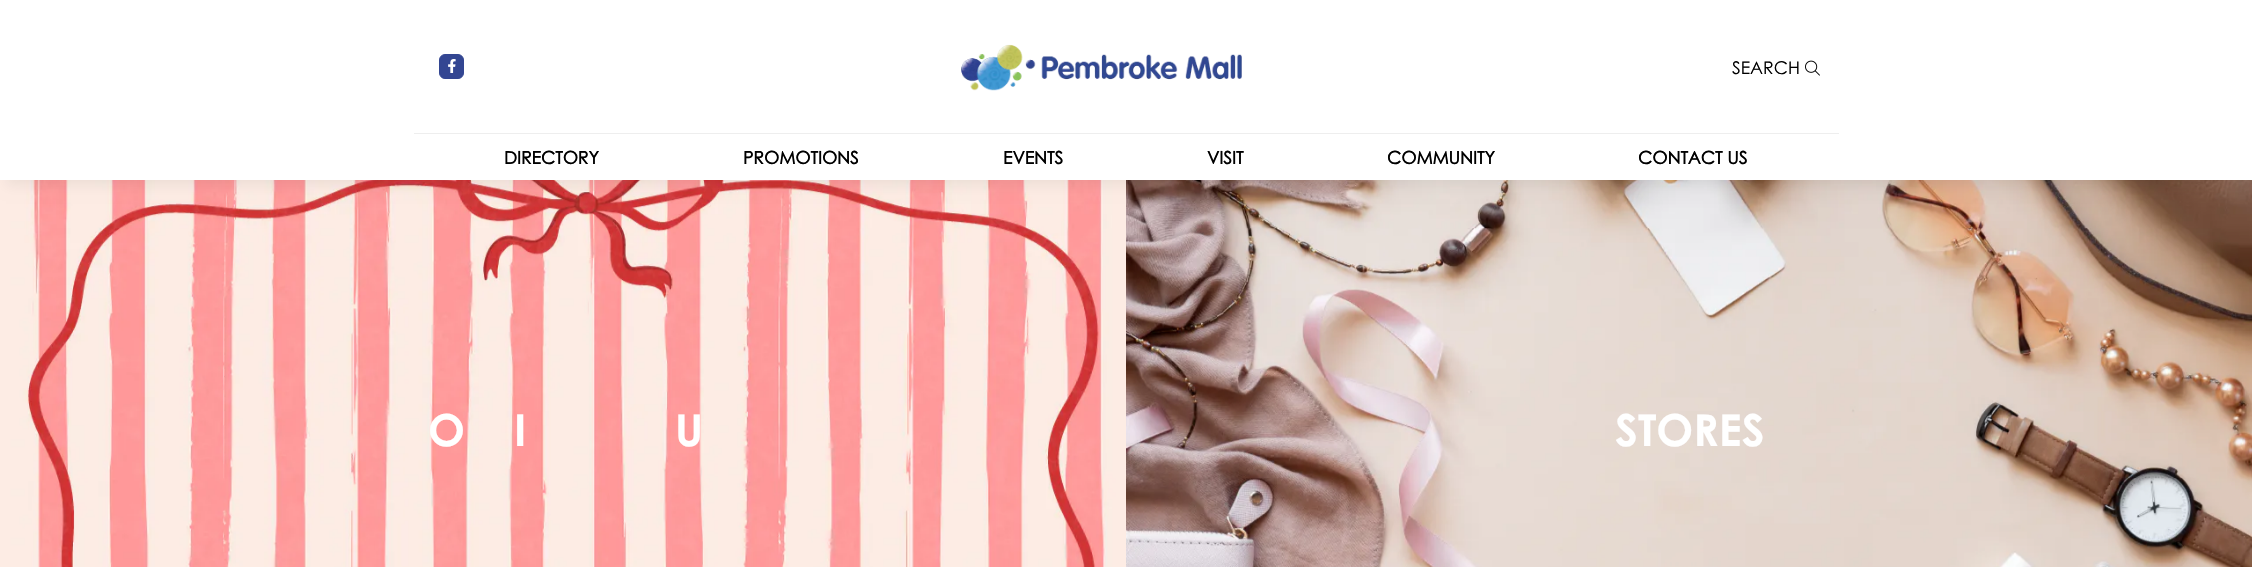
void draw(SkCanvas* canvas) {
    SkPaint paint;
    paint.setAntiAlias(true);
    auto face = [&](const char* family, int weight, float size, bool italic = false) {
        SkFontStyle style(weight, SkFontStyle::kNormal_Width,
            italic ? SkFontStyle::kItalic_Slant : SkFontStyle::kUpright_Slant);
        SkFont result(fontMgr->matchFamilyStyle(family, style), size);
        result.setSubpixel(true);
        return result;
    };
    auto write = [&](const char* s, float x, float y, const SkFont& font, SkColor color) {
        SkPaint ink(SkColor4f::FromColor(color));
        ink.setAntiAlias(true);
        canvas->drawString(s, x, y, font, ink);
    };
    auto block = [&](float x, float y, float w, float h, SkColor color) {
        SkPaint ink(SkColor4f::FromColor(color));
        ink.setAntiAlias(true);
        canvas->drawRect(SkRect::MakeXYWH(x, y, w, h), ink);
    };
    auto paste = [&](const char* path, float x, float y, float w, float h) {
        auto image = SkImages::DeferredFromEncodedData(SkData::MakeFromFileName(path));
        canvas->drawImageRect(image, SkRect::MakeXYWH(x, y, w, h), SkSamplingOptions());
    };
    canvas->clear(SK_ColorWHITE);
    paste("pic4.png", 0, 180, 1126, 387);
    paste("pic5.png", 1126, 180, 1126, 387);
    paint.setColor(SkColorSetARGB(15, 0, 0, 0));
    paint.setMaskFilter(SkMaskFilter::MakeBlur(kNormal_SkBlurStyle, 6));
    canvas->drawRect(SkRect::MakeXYWH(6, 6, 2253, 180), paint);
    paint.setMaskFilter(nullptr);
    block(0, 0, 2252, 180, SK_ColorWHITE);
    block(414, 133, 1425, 1, SkColorSetRGB(238, 238, 238));
    paint.setColor(SkColorSetRGB(51, 70, 146));
    canvas->drawRoundRect(SkRect::MakeXYWH(439.5f, 54.5f, 24, 24), 5.5f, 5.5f, paint);
    paint.setStyle(SkPaint::kStroke_Style);
    paint.setStrokeWidth(1);
    canvas->drawRoundRect(SkRect::MakeXYWH(439.5f, 54.5f, 24, 24), 5.5f, 5.5f, paint);
    paste("pic1.png", 448, 59, 8, 14);
    paste("pic2.png", 961, 44, 281, 47);
    auto kFont1 = face("Century Gothic", 400, 17.5f);
    write("SEARCH", 1732, 74, kFont1, SK_ColorBLACK);
    paste("pic3.png", 1805, 60, 15, 16);
    auto kFont2 = face("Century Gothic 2", 700, 17.5f);
    write("DIRECTORY", 504, 164, kFont2, SK_ColorBLACK);
    write("PROMOTIONS", 743, 164, kFont2, SK_ColorBLACK);
    write("EVENTS", 1003, 164, kFont2, SK_ColorBLACK);
    write("VISIT", 1207, 164, kFont2, SK_ColorBLACK);
    write("COMMUNITY", 1387, 164, kFont2, SK_ColorBLACK);
    write("CONTACT US", 1638, 164, kFont2, SK_ColorBLACK);
    auto kFont3 = face("Century Gothic", 700, 44);
    write("O", 428, 446, kFont3, SK_ColorWHITE);
    write("I", 514, 446, kFont3, SK_ColorWHITE);
    write("U", 675, 446, kFont3, SK_ColorWHITE);
    write("STORES", 1615, 446, kFont3, SK_ColorWHITE);
}
